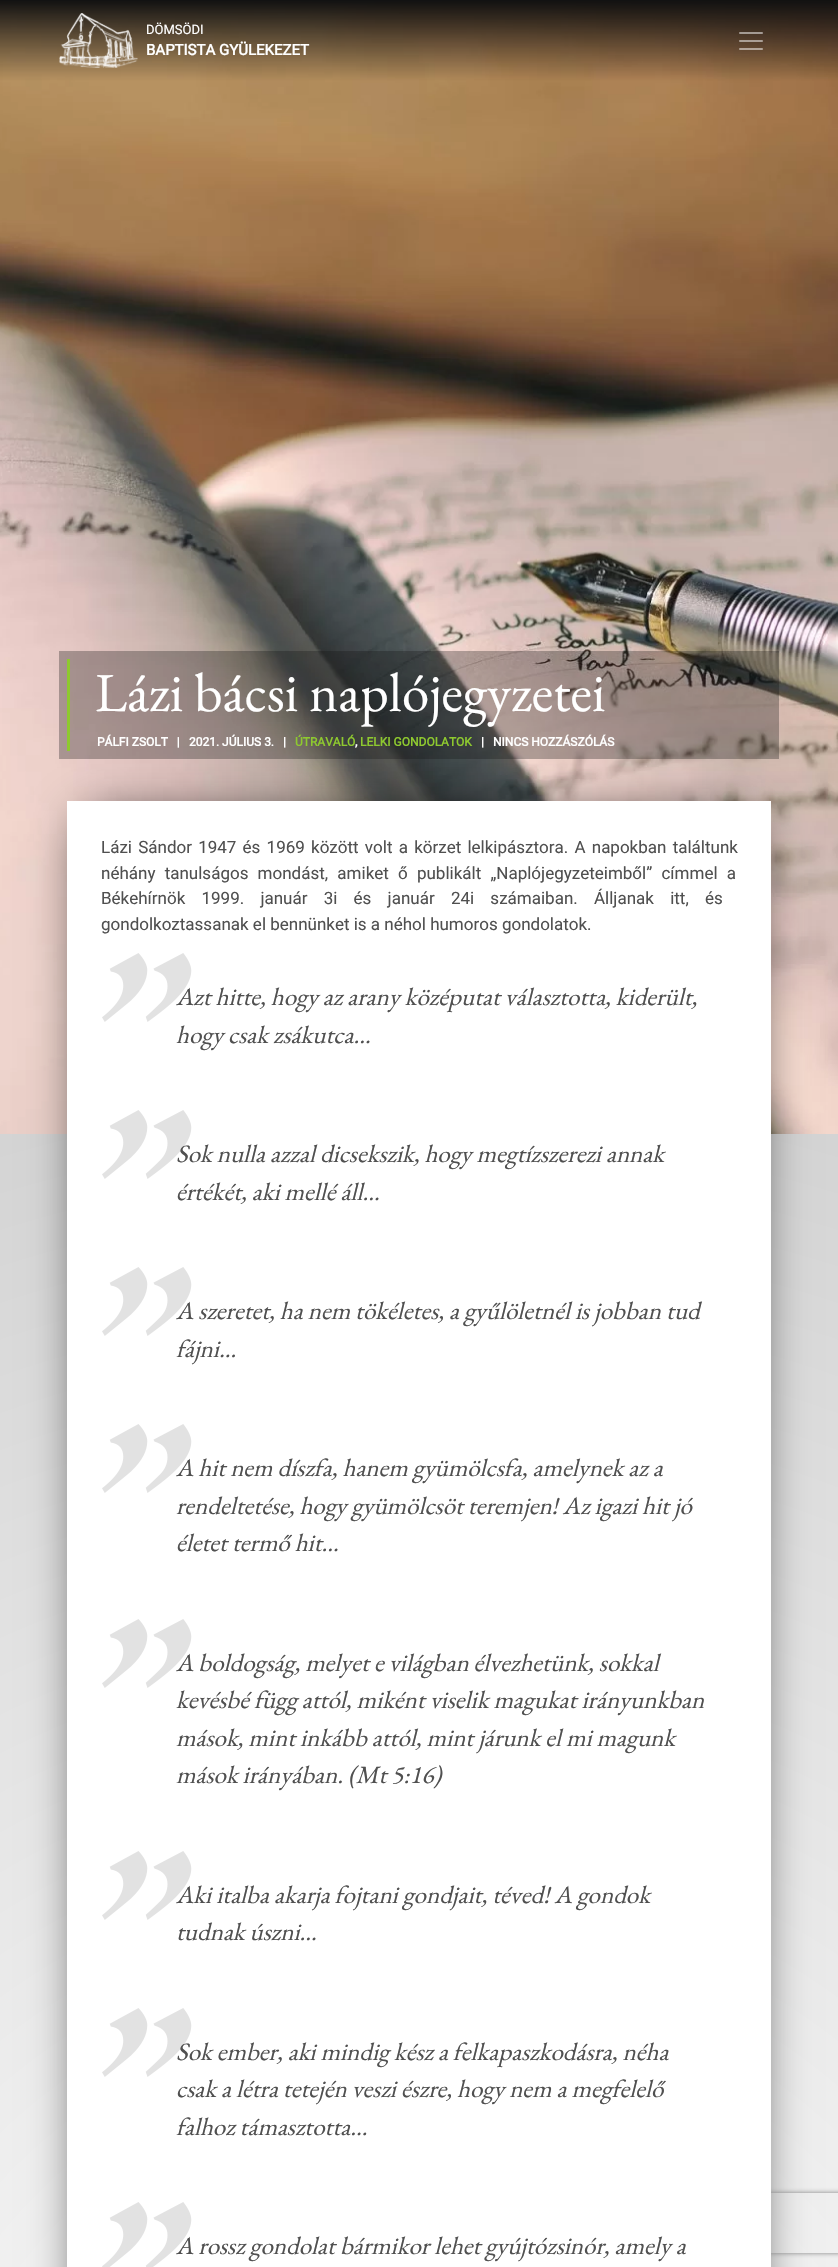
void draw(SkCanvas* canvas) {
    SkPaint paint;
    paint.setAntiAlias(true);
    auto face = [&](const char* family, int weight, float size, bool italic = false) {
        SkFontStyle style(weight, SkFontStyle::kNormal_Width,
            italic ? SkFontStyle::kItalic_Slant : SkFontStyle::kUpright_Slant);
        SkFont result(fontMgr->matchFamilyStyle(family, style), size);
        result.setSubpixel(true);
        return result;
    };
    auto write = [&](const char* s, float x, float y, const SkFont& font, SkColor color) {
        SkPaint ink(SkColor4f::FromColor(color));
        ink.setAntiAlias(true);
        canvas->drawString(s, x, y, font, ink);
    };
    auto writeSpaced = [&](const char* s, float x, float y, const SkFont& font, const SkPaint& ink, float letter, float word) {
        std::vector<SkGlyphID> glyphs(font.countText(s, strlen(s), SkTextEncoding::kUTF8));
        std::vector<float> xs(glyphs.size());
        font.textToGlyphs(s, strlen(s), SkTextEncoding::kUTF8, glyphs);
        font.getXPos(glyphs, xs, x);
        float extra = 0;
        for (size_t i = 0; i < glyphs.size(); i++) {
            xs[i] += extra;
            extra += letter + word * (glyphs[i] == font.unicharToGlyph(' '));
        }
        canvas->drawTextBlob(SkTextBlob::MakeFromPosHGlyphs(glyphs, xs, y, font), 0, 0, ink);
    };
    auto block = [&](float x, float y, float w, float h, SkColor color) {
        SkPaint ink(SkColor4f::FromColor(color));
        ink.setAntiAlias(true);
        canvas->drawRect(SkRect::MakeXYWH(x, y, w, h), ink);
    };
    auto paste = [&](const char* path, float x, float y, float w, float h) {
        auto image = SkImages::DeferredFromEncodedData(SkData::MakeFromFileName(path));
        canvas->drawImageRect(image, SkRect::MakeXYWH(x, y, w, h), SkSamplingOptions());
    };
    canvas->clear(SK_ColorWHITE);
    {
        const SkColor colors[] = {SK_ColorWHITE, SkColorSetRGB(180, 180, 180)};
        const float stops[] = {0, 1};
        paint.setShader(SkGradientShader::MakeRadial({419, 2574}, 2607, colors, stops, 2, SkTileMode::kClamp));
        paint.setAlpha(255);
    }
    canvas->drawRect(SkRect::MakeXYWH(0, 1134, 838, 1133), paint);
    paste("pic3.png", 0, 0, 838, 1134);
    paste("pic1.png", 59, 13, 79, 55);
    auto kFont1 = face("Roboto", 400, 13);
    write("DÖMSÖDI", 146, 34, kFont1, SK_ColorWHITE);
    auto kFont2 = face("Roboto", 700, 15);
    write("BAPTISTA GYÜLEKEZET", 146, 55, kFont2, SK_ColorWHITE);
    paste("pic2.png", 739, 32, 24, 18);
    block(59, 651, 720, 108, SkColorSetARGB(77, 17, 17, 17));
    block(67, 659, 3, 92, SkColorSetRGB(142, 201, 47));
    auto kFont3 = face("EB Garamond", 400, 55);
    write("Lázi bácsi naplójegyzetei", 95, 711, kFont3, SK_ColorWHITE);
    auto kFont4 = face("Roboto", 700, 12);
    write("PÁLFI ZSOLT   |", 97, 746, kFont4, SK_ColorWHITE);
    write("2021. JÚLIUS 3.   |", 189, 746, kFont4, SK_ColorWHITE);
    write("ÚTRAVALÓ", 295, 746, kFont4, SkColorSetRGB(142, 201, 47));
    write(",", 355, 746, kFont4, SK_ColorWHITE);
    write("LELKI GONDOLATOK", 360, 746, kFont4, SkColorSetRGB(142, 201, 47));
    write("|", 481, 746, kFont4, SK_ColorWHITE);
    write("NINCS HOZZÁSZÓLÁS", 493, 746, kFont4, SK_ColorWHITE);
    paint.setShader(nullptr);
    paint.setColor(SkColorSetRGB(17, 17, 17));
    paint.setMaskFilter(SkMaskFilter::MakeBlur(kNormal_SkBlurStyle, 25));
    canvas->drawRect(SkRect::MakeXYWH(87, 821, 664, 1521), paint);
    paint.setMaskFilter(nullptr);
    canvas->save();
    canvas->clipPath(SkPathBuilder(SkPathFillType::kEvenOdd).moveTo(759, 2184).lineTo(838, 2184).lineTo(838, 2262).lineTo(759, 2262).close().moveTo(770, 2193).lineTo(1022, 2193).cubicTo(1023, 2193, 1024, 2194, 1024, 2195).lineTo(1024, 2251).cubicTo(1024, 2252, 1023, 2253, 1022, 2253).lineTo(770, 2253).cubicTo(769, 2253, 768, 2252, 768, 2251).lineTo(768, 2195).cubicTo(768, 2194, 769, 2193, 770, 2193).close().detach(), true);
    paint.setColor(SkColorSetRGB(128, 128, 128));
    paint.setMaskFilter(SkMaskFilter::MakeBlur(kNormal_SkBlurStyle, 2.5f));
    canvas->drawRoundRect(SkRect::MakeXYWH(768, 2193, 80, 60), 2, 2, paint);
    paint.setMaskFilter(nullptr);
    canvas->restore();
    block(67, 801, 704, 1466, SK_ColorWHITE);
    auto kFont5 = face("Roboto", 400, 17);
    paint.setColor(SkColorSetRGB(80, 80, 80));
    writeSpaced("Lázi Sándor 1947 és 1969 között volt a körzet lelkipásztora. A napokban találtunk", 101, 853, kFont5, paint, 0, 2);
    writeSpaced("néhány tanulságos mondást, amiket ő publikált „Naplójegyzeteimből” címmel a", 101, 879, kFont5, paint, 0, 5);
    writeSpaced("Békehírnök 1999. január 3‑i és január 24‑i számaiban. Álljanak itt, és", 101, 904, kFont5, paint, 0, 12);
    write("gondolkoztassanak el bennünket is a néhol humoros gondolatok.", 101, 930, kFont5, SkColorSetRGB(80, 80, 80));
    paste("pic4.png", 102, 953, 90, 69);
    auto kFont6 = face("EB Garamond", 400, 25, true);
    write("Azt hitte, hogy az arany középutat választotta, kiderült,", 176, 1005, kFont6, SkColorSetRGB(80, 80, 80));
    write("hogy csak zsákutca…", 176, 1043, kFont6, SkColorSetRGB(80, 80, 80));
    paste("pic4.png", 102, 1110, 90, 69);
    write("Sok nulla azzal dicsekszik, hogy megtízszerezi annak", 176, 1162, kFont6, SkColorSetRGB(80, 80, 80));
    write("értékét, aki mellé áll…", 176, 1200, kFont6, SkColorSetRGB(80, 80, 80));
    paste("pic4.png", 102, 1267, 90, 69);
    write("A szeretet, ha nem tökéletes, a gyűlöletnél is jobban tud", 176, 1319, kFont6, SkColorSetRGB(80, 80, 80));
    write("fájni…", 176, 1357, kFont6, SkColorSetRGB(80, 80, 80));
    paste("pic4.png", 102, 1424, 90, 69);
    write("A hit nem díszfa, hanem gyümölcsfa, amelynek az a", 176, 1476, kFont6, SkColorSetRGB(80, 80, 80));
    write("rendeltetése, hogy gyümölcsöt teremjen! Az igazi hit jó", 176, 1514, kFont6, SkColorSetRGB(80, 80, 80));
    write("életet termő hit…", 176, 1551, kFont6, SkColorSetRGB(80, 80, 80));
    paste("pic4.png", 102, 1619, 90, 69);
    write("A boldogság, melyet e világban élvezhetünk, sokkal", 176, 1671, kFont6, SkColorSetRGB(80, 80, 80));
    write("kevésbé függ attól, miként viselik magukat irányunkban", 176, 1708, kFont6, SkColorSetRGB(80, 80, 80));
    write("mások, mint inkább attól, mint járunk el mi magunk", 176, 1746, kFont6, SkColorSetRGB(80, 80, 80));
    write("mások irányában. (Mt 5:16)", 176, 1783, kFont6, SkColorSetRGB(80, 80, 80));
    paste("pic4.png", 102, 1851, 90, 69);
    write("Aki italba akarja fojtani gondjait, téved! A gondok", 176, 1903, kFont6, SkColorSetRGB(80, 80, 80));
    write("tudnak úszni…", 176, 1940, kFont6, SkColorSetRGB(80, 80, 80));
    paste("pic4.png", 102, 2008, 90, 69);
    write("Sok ember, aki mindig kész a felkapaszkodásra, néha", 176, 2060, kFont6, SkColorSetRGB(80, 80, 80));
    write("csak a létra tetején veszi észre, hogy nem a megfelelő", 176, 2097, kFont6, SkColorSetRGB(80, 80, 80));
    write("falhoz támasztotta…", 176, 2135, kFont6, SkColorSetRGB(80, 80, 80));
    paste("pic5.png", 102, 2202, 90, 65);
    write("A rossz gondolat bármikor lehet gyújtózsinór, amely a", 176, 2254, kFont6, SkColorSetRGB(80, 80, 80));
}
